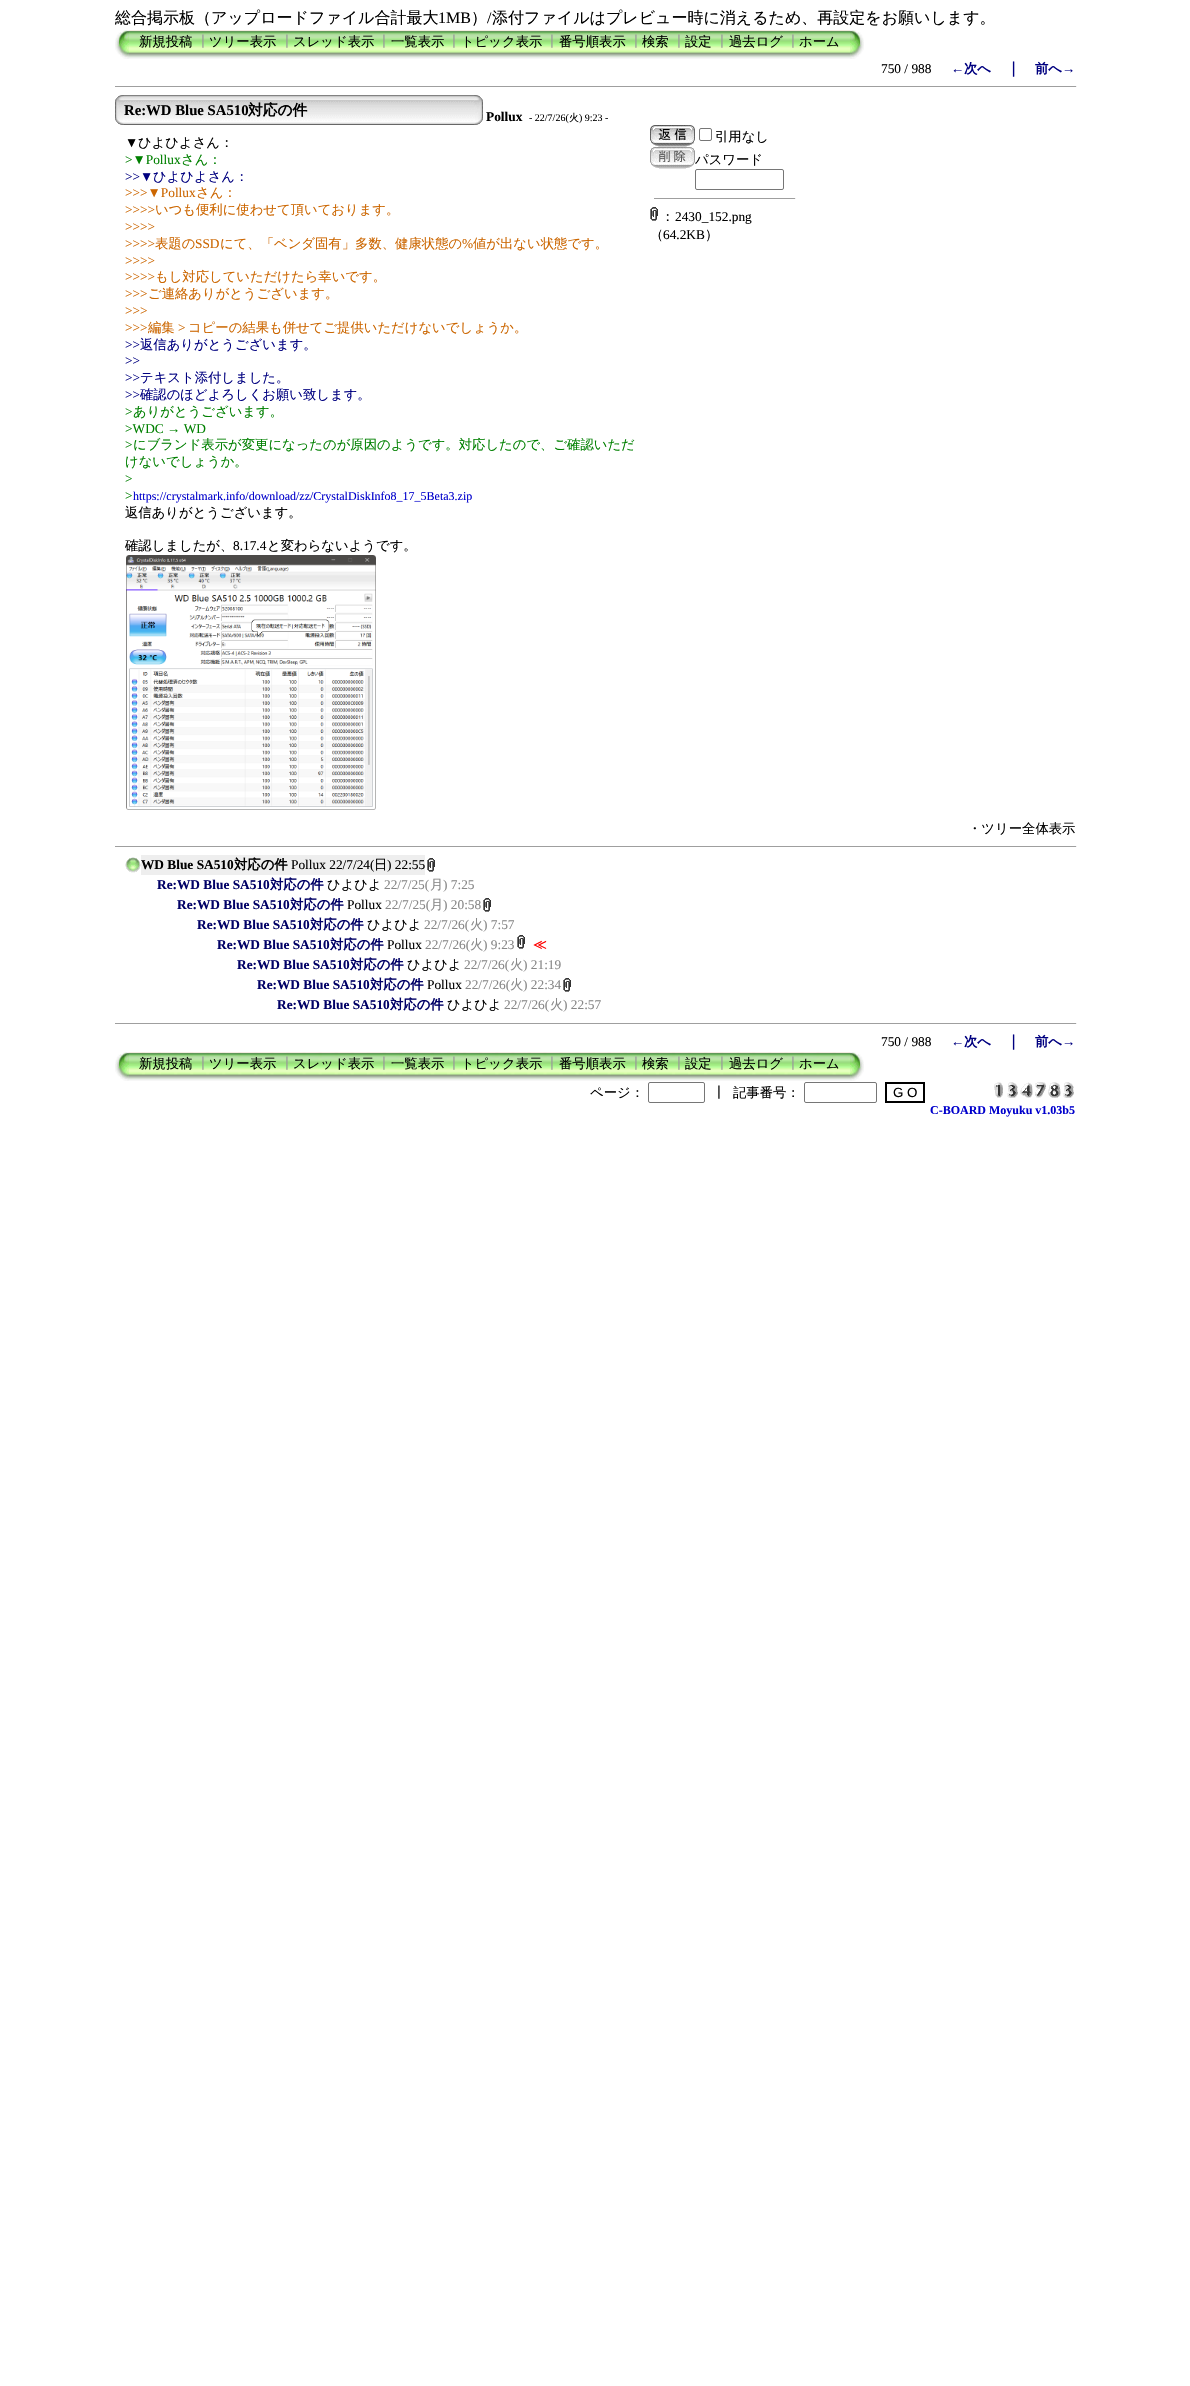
void draw(SkCanvas* canvas) {
    SkPaint paint;
    paint.setAntiAlias(true);
    auto face = [&](const char* family, int weight, float size, bool italic = false) {
        SkFontStyle style(weight, SkFontStyle::kNormal_Width,
            italic ? SkFontStyle::kItalic_Slant : SkFontStyle::kUpright_Slant);
        SkFont result(fontMgr->matchFamilyStyle(family, style), size);
        result.setSubpixel(true);
        return result;
    };
    auto write = [&](const char* s, float x, float y, const SkFont& font, SkColor color) {
        SkPaint ink(SkColor4f::FromColor(color));
        ink.setAntiAlias(true);
        canvas->drawString(s, x, y, font, ink);
    };
    auto block = [&](float x, float y, float w, float h, SkColor color) {
        SkPaint ink(SkColor4f::FromColor(color));
        ink.setAntiAlias(true);
        canvas->drawRect(SkRect::MakeXYWH(x, y, w, h), ink);
    };
    auto paste = [&](const char* path, float x, float y, float w, float h) {
        auto image = SkImages::DeferredFromEncodedData(SkData::MakeFromFileName(path));
        canvas->drawImageRect(image, SkRect::MakeXYWH(x, y, w, h), SkSamplingOptions());
    };
    canvas->clear(SK_ColorWHITE);
    auto kFont1 = face("WenQuanYi Zen Hei", 500, 16);
    write("総合掲示板（アップロードファイル合計最大", 115, 23, kFont1, SK_ColorBLACK);
    auto kFont2 = face("Liberation Serif", 400, 16);
    write("1MB", 438, 23, kFont2, SK_ColorBLACK);
    write("）", 471, 23, kFont1, SK_ColorBLACK);
    write("/", 487, 23, kFont2, SK_ColorBLACK);
    write("添付ファイルはプレビュー時に消えるため、再設定をお願いします。", 492, 23, kFont1, SK_ColorBLACK);
    paste("pic1.png", 115, 30, 14, 29);
    paste("pic2.png", 129, 30, 721, 29);
    auto kFont3 = face("WenQuanYi Zen Hei", 500, 13.35f);
    write("新規投稿", 139, 46, kFont3, SK_ColorBLACK);
    write("┃", 196, 46, kFont3, SkColorSetRGB(153, 153, 153));
    write("ツリー表示", 209, 46, kFont3, SK_ColorBLACK);
    write("┃", 280, 46, kFont3, SkColorSetRGB(153, 153, 153));
    write("スレッド表示", 293, 46, kFont3, SK_ColorBLACK);
    write("┃", 377, 46, kFont3, SkColorSetRGB(153, 153, 153));
    write("一覧表示", 391, 46, kFont3, SK_ColorBLACK);
    write("┃", 447, 46, kFont3, SkColorSetRGB(153, 153, 153));
    write("トピック表示", 461, 46, kFont3, SK_ColorBLACK);
    write("┃", 545, 46, kFont3, SkColorSetRGB(153, 153, 153));
    write("番号順表示", 559, 46, kFont3, SK_ColorBLACK);
    write("┃", 629, 46, kFont3, SkColorSetRGB(153, 153, 153));
    write("検索", 642, 46, kFont3, SK_ColorBLACK);
    write("┃", 672, 46, kFont3, SkColorSetRGB(153, 153, 153));
    write("設定", 685, 46, kFont3, SK_ColorBLACK);
    write("┃", 715, 46, kFont3, SkColorSetRGB(153, 153, 153));
    write("過去ログ", 729, 46, kFont3, SK_ColorBLACK);
    write("┃", 786, 46, kFont3, SkColorSetRGB(153, 153, 153));
    write("ホーム", 799, 46, kFont3, SK_ColorBLACK);
    paste("pic3.png", 850, 30, 14, 29);
    auto kFont4 = face("Liberation Serif", 400, 13.35f);
    write("750 / 988", 881, 73, kFont4, SK_ColorBLACK);
    auto kFont5 = face("Liberation Serif", 700, 13.35f);
    write("←", 951, 73, kFont5, SkColorSetRGB(0, 0, 128));
    auto kFont6 = face("WenQuanYi Zen Hei", 700, 13.35f);
    write("次へ", 964, 73, kFont6, SkColorSetRGB(0, 0, 128));
    auto kFont7 = face("WenQuanYi Zen Hei", 700, 14.75f);
    write("｜", 1006, 73, kFont7, SkColorSetRGB(0, 0, 128));
    write("前へ", 1035, 73, kFont6, SkColorSetRGB(0, 0, 128));
    write("→", 1062, 73, kFont5, SkColorSetRGB(0, 0, 128));
    block(115, 86, 962, 1, SkColorSetRGB(159, 159, 159));
    block(1076, 86, 1, 1, SkColorSetRGB(238, 238, 238));
    paste("pic4.png", 115, 95, 9, 30);
    paste("pic5.png", 124, 95, 350, 30);
    auto kFont8 = face("Liberation Serif", 700, 14.75f);
    write("Re:WD Blue SA510", 124, 115, kFont8, SK_ColorBLACK);
    write("対応の件", 248, 115, kFont7, SK_ColorBLACK);
    paste("pic6.png", 474, 95, 9, 30);
    write("Pollux", 486, 121, kFont5, SK_ColorBLACK);
    auto kFont9 = face("Liberation Serif", 400, 10);
    write("- 22/7/26(", 529, 121, kFont9, SK_ColorBLACK);
    auto kFont10 = face("WenQuanYi Zen Hei", 500, 10);
    write("火", 569, 121, kFont10, SK_ColorBLACK);
    write(") 9:23 -", 579, 121, kFont9, SK_ColorBLACK);
    write("▼", 125, 147, kFont4, SK_ColorBLACK);
    write("ひよひよさん：", 138, 147, kFont3, SK_ColorBLACK);
    write(">▼Pollux", 125, 164, kFont4, SkColorSetRGB(0, 128, 0));
    write("さん：", 181, 164, kFont3, SkColorSetRGB(0, 128, 0));
    write(">>▼", 125, 181, kFont4, SkColorSetRGB(0, 0, 128));
    write("ひよひよさん：", 153, 181, kFont3, SkColorSetRGB(0, 0, 128));
    write(">>>▼Pollux", 125, 197, kFont4, SkColorSetRGB(204, 102, 0));
    write("さん：", 196, 197, kFont3, SkColorSetRGB(204, 102, 0));
    write(">>>>", 125, 214, kFont4, SkColorSetRGB(204, 102, 0));
    write("いつも便利に使わせて頂いております。", 155, 214, kFont3, SkColorSetRGB(204, 102, 0));
    write(">>>>", 125, 231, kFont4, SkColorSetRGB(204, 102, 0));
    write(">>>>", 125, 248, kFont4, SkColorSetRGB(204, 102, 0));
    write("表題の", 155, 248, kFont3, SkColorSetRGB(204, 102, 0));
    write("SSD", 195, 248, kFont4, SkColorSetRGB(204, 102, 0));
    write("にて、「ベンダ固有」多数、健康状態の", 220, 248, kFont3, SkColorSetRGB(204, 102, 0));
    write("%", 462, 248, kFont4, SkColorSetRGB(204, 102, 0));
    write("値が出ない状態です。", 473, 248, kFont3, SkColorSetRGB(204, 102, 0));
    write(">>>>", 125, 265, kFont4, SkColorSetRGB(204, 102, 0));
    write(">>>>", 125, 281, kFont4, SkColorSetRGB(204, 102, 0));
    write("もし対応していただけたら幸いです。", 155, 281, kFont3, SkColorSetRGB(204, 102, 0));
    write(">>>", 125, 298, kFont4, SkColorSetRGB(204, 102, 0));
    write("ご連絡ありがとうございます。", 148, 298, kFont3, SkColorSetRGB(204, 102, 0));
    write(">>>", 125, 315, kFont4, SkColorSetRGB(204, 102, 0));
    write(">>>", 125, 332, kFont4, SkColorSetRGB(204, 102, 0));
    write("編集", 148, 332, kFont3, SkColorSetRGB(204, 102, 0));
    write(">", 178, 332, kFont4, SkColorSetRGB(204, 102, 0));
    write("コピーの結果も併せてご提供いただけないでしょうか。", 188, 332, kFont3, SkColorSetRGB(204, 102, 0));
    write(">>", 125, 349, kFont4, SkColorSetRGB(0, 0, 128));
    write("返信ありがとうございます。", 140, 349, kFont3, SkColorSetRGB(0, 0, 128));
    write(">>", 125, 365, kFont4, SkColorSetRGB(0, 0, 128));
    write(">>", 125, 382, kFont4, SkColorSetRGB(0, 0, 128));
    write("テキスト添付しました。", 140, 382, kFont3, SkColorSetRGB(0, 0, 128));
    write(">>", 125, 399, kFont4, SkColorSetRGB(0, 0, 128));
    write("確認のほどよろしくお願い致します。", 140, 399, kFont3, SkColorSetRGB(0, 0, 128));
    write(">", 125, 416, kFont4, SkColorSetRGB(0, 128, 0));
    write("ありがとうございます。", 133, 416, kFont3, SkColorSetRGB(0, 128, 0));
    write(">WDC → WD", 125, 433, kFont4, SkColorSetRGB(0, 128, 0));
    write(">", 125, 449, kFont4, SkColorSetRGB(0, 128, 0));
    write("にブランド表示が変更になったのが原因のようです。対応したので、ご確認いただ", 133, 449, kFont3, SkColorSetRGB(0, 128, 0));
    write("けないでしょうか。", 125, 466, kFont3, SkColorSetRGB(0, 128, 0));
    write(">", 125, 483, kFont4, SkColorSetRGB(0, 128, 0));
    write(">", 125, 500, kFont4, SkColorSetRGB(0, 128, 0));
    auto kFont11 = face("Liberation Serif", 400, 12);
    write("https://crystalmark.info/download/zz/CrystalDiskInfo8_17_5Beta3.zip", 133, 500, kFont11, SkColorSetRGB(0, 0, 204));
    write("返信ありがとうございます。", 125, 517, kFont3, SK_ColorBLACK);
    write("確認しましたが、", 125, 550, kFont3, SK_ColorBLACK);
    write("8.17.4", 233, 550, kFont4, SK_ColorBLACK);
    write("と変わらないようです。", 267, 550, kFont3, SK_ColorBLACK);
    paste("pic7.png", 126, 555, 250, 255);
    paste("pic8.png", 650, 125, 45, 22);
    paint.setStyle(SkPaint::kStroke_Style);
    paint.setStrokeWidth(1);
    paint.setColor(SkColorSetRGB(118, 118, 118));
    canvas->drawRoundRect(SkRect::MakeXYWH(699.5f, 128.5f, 12, 12), 1.5f, 1.5f, paint);
    write("引用なし", 715, 141, kFont3, SK_ColorBLACK);
    paste("pic9.png", 650, 147, 45, 22);
    write("パスワード", 695, 164, kFont3, SK_ColorBLACK);
    canvas->drawRoundRect(SkRect::MakeXYWH(695.5f, 169.5f, 88, 20), 1.5f, 1.5f, paint);
    block(654, 198, 142, 1, SkColorSetRGB(159, 159, 159));
    block(795, 198, 1, 1, SkColorSetRGB(238, 238, 238));
    paste("pic10.png", 650, 207, 8, 14);
    write("：", 661, 221, kFont3, SK_ColorBLACK);
    write("2430_152.png", 675, 221, kFont4, SK_ColorBLACK);
    write("（", 650, 239, kFont3, SK_ColorBLACK);
    write("64.2KB", 663, 239, kFont4, SK_ColorBLACK);
    write("）", 705, 239, kFont3, SK_ColorBLACK);
    write("・ツリー全体表示", 968, 833, kFont3, SK_ColorBLACK);
    block(115, 846, 962, 1, SkColorSetRGB(159, 159, 159));
    block(1076, 846, 1, 1, SkColorSetRGB(238, 238, 238));
    paste("pic11.png", 125, 857, 16, 16);
    block(141, 855, 284, 20, SkColorSetRGB(238, 238, 238));
    write("WD Blue SA510", 141, 869, kFont5, SK_ColorBLACK);
    write("対応の件", 234, 869, kFont6, SK_ColorBLACK);
    write("Pollux 22/7/24(", 291, 869, kFont4, SK_ColorBLACK);
    write("日", 374, 869, kFont3, SK_ColorBLACK);
    write(") 22:55", 387, 869, kFont4, SK_ColorBLACK);
    paste("pic10.png", 427, 858, 8, 14);
    write("Re:WD Blue SA510", 157, 889, kFont5, SkColorSetRGB(0, 0, 102));
    write("対応の件", 270, 889, kFont6, SkColorSetRGB(0, 0, 102));
    write("ひよひよ", 327, 889, kFont3, SK_ColorBLACK);
    write("22/7/25(", 384, 889, kFont4, SkColorSetRGB(136, 136, 136));
    write("月", 430, 889, kFont3, SkColorSetRGB(136, 136, 136));
    write(") 7:25", 443, 889, kFont4, SkColorSetRGB(136, 136, 136));
    write("Re:WD Blue SA510", 177, 909, kFont5, SkColorSetRGB(0, 0, 102));
    write("対応の件", 290, 909, kFont6, SkColorSetRGB(0, 0, 102));
    write("Pollux", 347, 909, kFont4, SK_ColorBLACK);
    write("22/7/25(", 385, 909, kFont4, SkColorSetRGB(136, 136, 136));
    write("月", 430, 909, kFont3, SkColorSetRGB(136, 136, 136));
    write(") 20:58", 443, 909, kFont4, SkColorSetRGB(136, 136, 136));
    paste("pic10.png", 483, 898, 8, 14);
    write("Re:WD Blue SA510", 197, 929, kFont5, SkColorSetRGB(0, 0, 102));
    write("対応の件", 310, 929, kFont6, SkColorSetRGB(0, 0, 102));
    write("ひよひよ", 367, 929, kFont3, SK_ColorBLACK);
    write("22/7/26(", 424, 929, kFont4, SkColorSetRGB(136, 136, 136));
    write("火", 470, 929, kFont3, SkColorSetRGB(136, 136, 136));
    write(") 7:57", 483, 929, kFont4, SkColorSetRGB(136, 136, 136));
    write("Re:WD Blue SA510", 217, 949, kFont5, SkColorSetRGB(0, 0, 102));
    write("対応の件", 330, 949, kFont6, SkColorSetRGB(0, 0, 102));
    write("Pollux", 387, 949, kFont4, SK_ColorBLACK);
    write("22/7/26(", 425, 949, kFont4, SkColorSetRGB(136, 136, 136));
    write("火", 470, 949, kFont3, SkColorSetRGB(136, 136, 136));
    write(") 9:23", 483, 949, kFont4, SkColorSetRGB(136, 136, 136));
    paste("pic10.png", 517, 935, 8, 14);
    write("≪", 533, 949, kFont6, SkColorSetRGB(255, 0, 0));
    write("Re:WD Blue SA510", 237, 969, kFont5, SkColorSetRGB(0, 0, 102));
    write("対応の件", 350, 969, kFont6, SkColorSetRGB(0, 0, 102));
    write("ひよひよ", 407, 969, kFont3, SK_ColorBLACK);
    write("22/7/26(", 464, 969, kFont4, SkColorSetRGB(136, 136, 136));
    write("火", 510, 969, kFont3, SkColorSetRGB(136, 136, 136));
    write(") 21:19", 523, 969, kFont4, SkColorSetRGB(136, 136, 136));
    write("Re:WD Blue SA510", 257, 989, kFont5, SkColorSetRGB(0, 0, 102));
    write("対応の件", 370, 989, kFont6, SkColorSetRGB(0, 0, 102));
    write("Pollux", 427, 989, kFont4, SK_ColorBLACK);
    write("22/7/26(", 465, 989, kFont4, SkColorSetRGB(136, 136, 136));
    write("火", 510, 989, kFont3, SkColorSetRGB(136, 136, 136));
    write(") 22:34", 523, 989, kFont4, SkColorSetRGB(136, 136, 136));
    paste("pic10.png", 563, 978, 8, 14);
    write("Re:WD Blue SA510", 277, 1009, kFont5, SkColorSetRGB(0, 0, 102));
    write("対応の件", 390, 1009, kFont6, SkColorSetRGB(0, 0, 102));
    write("ひよひよ", 447, 1009, kFont3, SK_ColorBLACK);
    write("22/7/26(", 504, 1009, kFont4, SkColorSetRGB(136, 136, 136));
    write("火", 550, 1009, kFont3, SkColorSetRGB(136, 136, 136));
    write(") 22:57", 563, 1009, kFont4, SkColorSetRGB(136, 136, 136));
    block(115, 1023, 962, 1, SkColorSetRGB(159, 159, 159));
    block(1076, 1023, 1, 1, SkColorSetRGB(238, 238, 238));
    write("750 / 988", 881, 1046, kFont4, SK_ColorBLACK);
    write("←", 951, 1046, kFont5, SkColorSetRGB(0, 0, 128));
    write("次へ", 964, 1046, kFont6, SkColorSetRGB(0, 0, 128));
    write("｜", 1006, 1046, kFont7, SkColorSetRGB(0, 0, 128));
    write("前へ", 1035, 1046, kFont6, SkColorSetRGB(0, 0, 128));
    write("→", 1062, 1046, kFont5, SkColorSetRGB(0, 0, 128));
    paste("pic12.png", 115, 1052, 14, 29);
    paste("pic13.png", 129, 1052, 721, 29);
    write("新規投稿", 139, 1068, kFont3, SK_ColorBLACK);
    write("┃", 196, 1068, kFont3, SkColorSetRGB(153, 153, 153));
    write("ツリー表示", 209, 1068, kFont3, SK_ColorBLACK);
    write("┃", 280, 1068, kFont3, SkColorSetRGB(153, 153, 153));
    write("スレッド表示", 293, 1068, kFont3, SK_ColorBLACK);
    write("┃", 377, 1068, kFont3, SkColorSetRGB(153, 153, 153));
    write("一覧表示", 391, 1068, kFont3, SK_ColorBLACK);
    write("┃", 447, 1068, kFont3, SkColorSetRGB(153, 153, 153));
    write("トピック表示", 461, 1068, kFont3, SK_ColorBLACK);
    write("┃", 545, 1068, kFont3, SkColorSetRGB(153, 153, 153));
    write("番号順表示", 559, 1068, kFont3, SK_ColorBLACK);
    write("┃", 629, 1068, kFont3, SkColorSetRGB(153, 153, 153));
    write("検索", 642, 1068, kFont3, SK_ColorBLACK);
    write("┃", 672, 1068, kFont3, SkColorSetRGB(153, 153, 153));
    write("設定", 685, 1068, kFont3, SK_ColorBLACK);
    write("┃", 715, 1068, kFont3, SkColorSetRGB(153, 153, 153));
    write("過去ログ", 729, 1068, kFont3, SK_ColorBLACK);
    write("┃", 786, 1068, kFont3, SkColorSetRGB(153, 153, 153));
    write("ホーム", 799, 1068, kFont3, SK_ColorBLACK);
    paste("pic14.png", 850, 1052, 14, 29);
    write("ページ：", 590, 1097, kFont3, SK_ColorBLACK);
    canvas->drawRoundRect(SkRect::MakeXYWH(648.5f, 1082.5f, 56, 20), 1.5f, 1.5f, paint);
    write("┃", 712, 1097, kFont3, SK_ColorBLACK);
    write("記事番号：", 733, 1097, kFont3, SK_ColorBLACK);
    canvas->drawRoundRect(SkRect::MakeXYWH(804.5f, 1082.5f, 72, 20), 1.5f, 1.5f, paint);
    paint.setStrokeWidth(2);
    paint.setColor(SK_ColorBLACK);
    canvas->drawRect(SkRect::MakeXYWH(886, 1083, 38, 19), paint);
    auto kFont12 = face("Liberation Sans", 400, 13.35f);
    write("G O", 893, 1097, kFont12, SK_ColorBLACK);
    paste("pic15.png", 994, 1082, 9, 16);
    paste("pic16.png", 1007, 1082, 11, 16);
    paste("pic17.png", 1020, 1082, 13, 16);
    paste("pic18.png", 1035, 1082, 11, 16);
    paste("pic19.png", 1048, 1082, 13, 16);
    paste("pic16.png", 1063, 1082, 11, 16);
    auto kFont13 = face("Liberation Serif", 700, 12);
    write("C-BOARD Moyuku v1.03b5", 930, 1114, kFont13, SkColorSetRGB(0, 0, 204));
}
